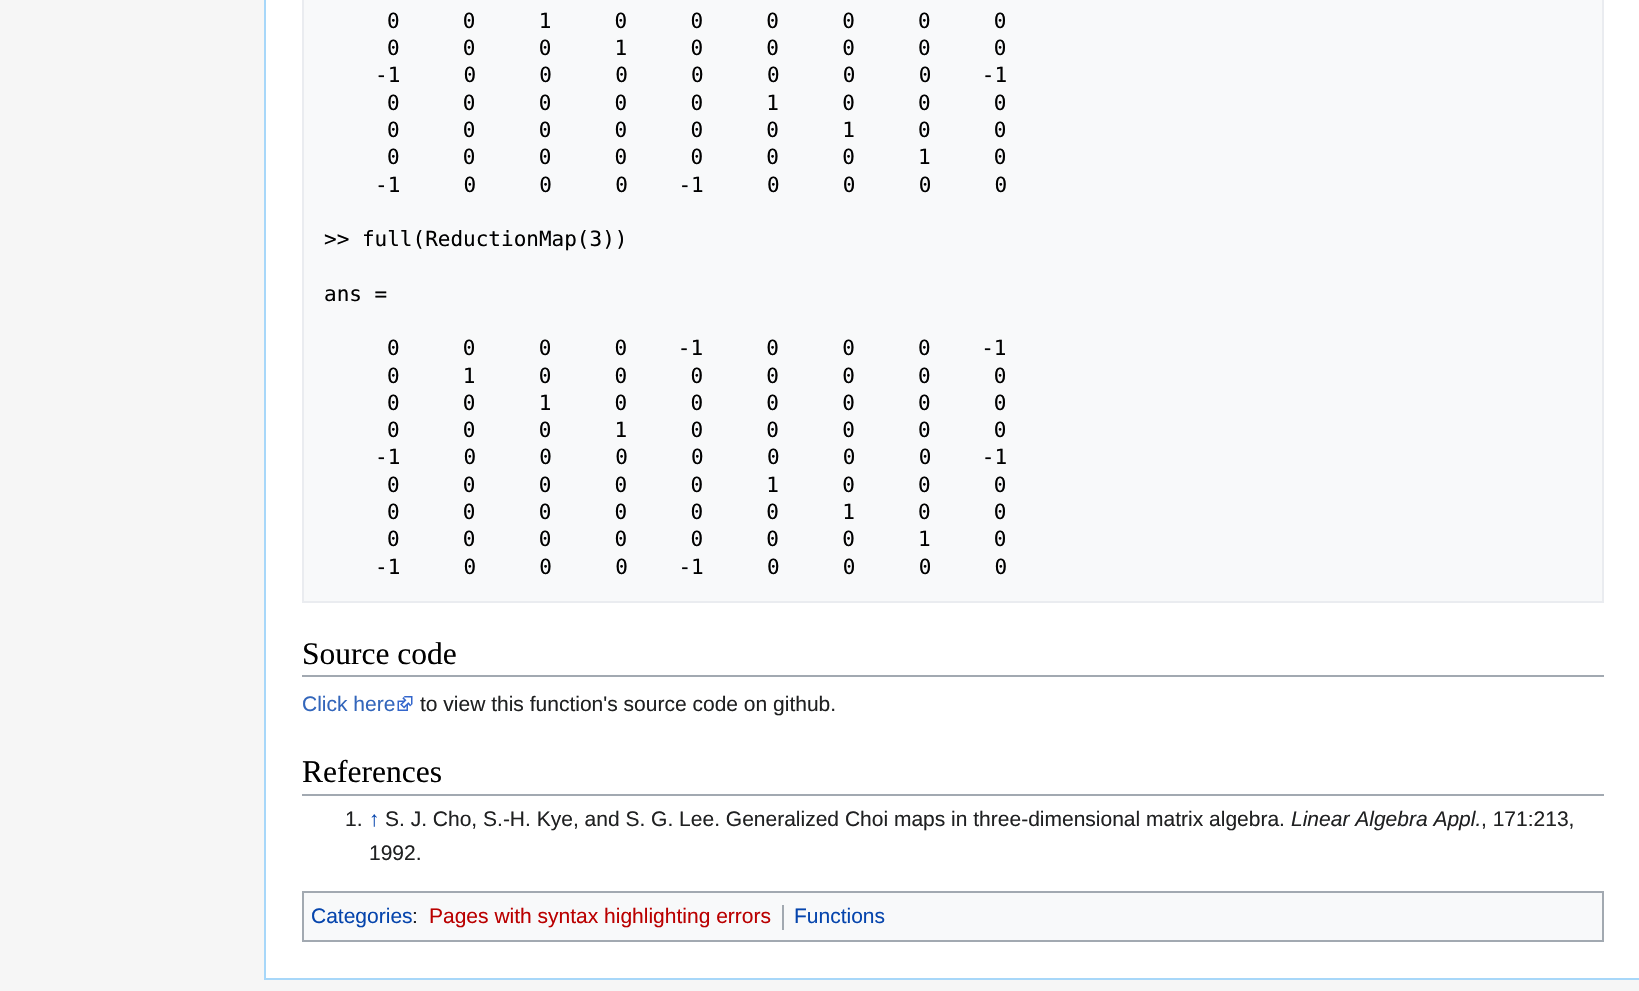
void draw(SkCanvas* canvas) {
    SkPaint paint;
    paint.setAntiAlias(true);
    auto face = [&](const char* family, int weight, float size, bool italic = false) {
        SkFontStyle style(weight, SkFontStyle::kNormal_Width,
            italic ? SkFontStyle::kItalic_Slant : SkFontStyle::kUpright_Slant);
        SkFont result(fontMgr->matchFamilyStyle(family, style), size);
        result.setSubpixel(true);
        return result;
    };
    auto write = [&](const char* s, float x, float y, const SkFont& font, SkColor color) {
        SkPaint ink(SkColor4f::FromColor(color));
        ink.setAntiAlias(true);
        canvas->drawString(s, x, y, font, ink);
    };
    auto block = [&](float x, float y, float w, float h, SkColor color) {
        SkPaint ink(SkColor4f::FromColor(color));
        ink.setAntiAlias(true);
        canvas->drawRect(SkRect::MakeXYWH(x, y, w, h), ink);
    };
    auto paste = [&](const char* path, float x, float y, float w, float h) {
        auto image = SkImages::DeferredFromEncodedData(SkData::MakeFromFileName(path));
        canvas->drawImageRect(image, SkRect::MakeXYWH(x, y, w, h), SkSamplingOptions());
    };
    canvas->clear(SkColorSetRGB(246, 246, 246));
    block(266, 0, 1373, 978, SK_ColorWHITE);
    block(264, 978, 1375, 2, SkColorSetRGB(167, 215, 249));
    block(264, 0, 2, 980, SkColorSetRGB(167, 215, 249));
    paint.setColor(SkColorSetRGB(248, 249, 250));
    canvas->drawRect(SkRect::MakeXYWH(303, -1, 1300, 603), paint);
    paint.setStyle(SkPaint::kStroke_Style);
    paint.setStrokeWidth(2);
    paint.setColor(SkColorSetRGB(234, 236, 240));
    canvas->drawRect(SkRect::MakeXYWH(303, -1, 1300, 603), paint);
    auto kFont1 = face("DejaVu Sans Mono", 400, 21);
    write("0     0     1     0     0     0     0     0     0", 387, 28, kFont1, SK_ColorBLACK);
    write("0     0     0     1     0     0     0     0     0", 387, 55, kFont1, SK_ColorBLACK);
    write("-1     0     0     0     0     0     0     0    -1", 375, 82, kFont1, SK_ColorBLACK);
    write("0     0     0     0     0     1     0     0     0", 387, 110, kFont1, SK_ColorBLACK);
    write("0     0     0     0     0     0     1     0     0", 387, 137, kFont1, SK_ColorBLACK);
    write("0     0     0     0     0     0     0     1     0", 387, 164, kFont1, SK_ColorBLACK);
    write("-1     0     0     0    -1     0     0     0     0", 375, 192, kFont1, SK_ColorBLACK);
    write(">> full(ReductionMap(3))", 324, 246, kFont1, SK_ColorBLACK);
    write("ans =", 324, 301, kFont1, SK_ColorBLACK);
    write("0     0     0     0    -1     0     0     0    -1", 387, 355, kFont1, SK_ColorBLACK);
    write("0     1     0     0     0     0     0     0     0", 387, 383, kFont1, SK_ColorBLACK);
    write("0     0     1     0     0     0     0     0     0", 387, 410, kFont1, SK_ColorBLACK);
    write("0     0     0     1     0     0     0     0     0", 387, 437, kFont1, SK_ColorBLACK);
    write("-1     0     0     0     0     0     0     0    -1", 375, 464, kFont1, SK_ColorBLACK);
    write("0     0     0     0     0     1     0     0     0", 387, 492, kFont1, SK_ColorBLACK);
    write("0     0     0     0     0     0     1     0     0", 387, 519, kFont1, SK_ColorBLACK);
    write("0     0     0     0     0     0     0     1     0", 387, 546, kFont1, SK_ColorBLACK);
    write("-1     0     0     0    -1     0     0     0     0", 375, 574, kFont1, SK_ColorBLACK);
    block(302, 675, 1302, 2, SkColorSetRGB(162, 169, 177));
    auto kFont2 = face("Liberation Serif", 400, 31.5f);
    write("Source code", 302, 664, kFont2, SK_ColorBLACK);
    auto kFont3 = face("Liberation Sans", 400, 21);
    write("Click here", 302, 711, kFont3, SkColorSetRGB(51, 102, 187));
    paste("pic1.png", 397, 696, 16, 15);
    write("to view this function's source code on github.", 420, 711, kFont3, SkColorSetRGB(32, 33, 34));
    block(302, 794, 1302, 2, SkColorSetRGB(162, 169, 177));
    write("References", 302, 782, kFont2, SK_ColorBLACK);
    write("1.", 345, 826, kFont3, SkColorSetRGB(32, 33, 34));
    write("↑", 369, 826, kFont3, SkColorSetRGB(6, 69, 173));
    write("S. J. Cho, S.-H. Kye, and S. G. Lee. Generalized Choi maps in three-dimensional matrix algebra.", 385, 826, kFont3, SkColorSetRGB(32, 33, 34));
    auto kFont4 = face("Liberation Sans", 400, 21, true);
    write("Linear Algebra Appl.", 1291, 826, kFont4, SkColorSetRGB(32, 33, 34));
    write(", 171:213,", 1481, 826, kFont3, SkColorSetRGB(32, 33, 34));
    write("1992.", 369, 860, kFont3, SkColorSetRGB(32, 33, 34));
    paint.setStyle(SkPaint::kFill_Style);
    paint.setColor(SkColorSetRGB(248, 249, 250));
    canvas->drawRect(SkRect::MakeXYWH(303, 892, 1300, 49), paint);
    paint.setStyle(SkPaint::kStroke_Style);
    paint.setColor(SkColorSetRGB(162, 169, 177));
    canvas->drawRect(SkRect::MakeXYWH(303, 892, 1300, 49), paint);
    write("Categories", 311, 923, kFont3, SkColorSetRGB(6, 69, 173));
    write(":", 412, 923, kFont3, SkColorSetRGB(32, 33, 34));
    write("Pages with syntax highlighting errors", 429, 923, kFont3, SkColorSetRGB(186, 0, 0));
    block(782, 905, 2, 25, SkColorSetRGB(162, 169, 177));
    write("Functions", 794, 923, kFont3, SkColorSetRGB(6, 69, 173));
}
